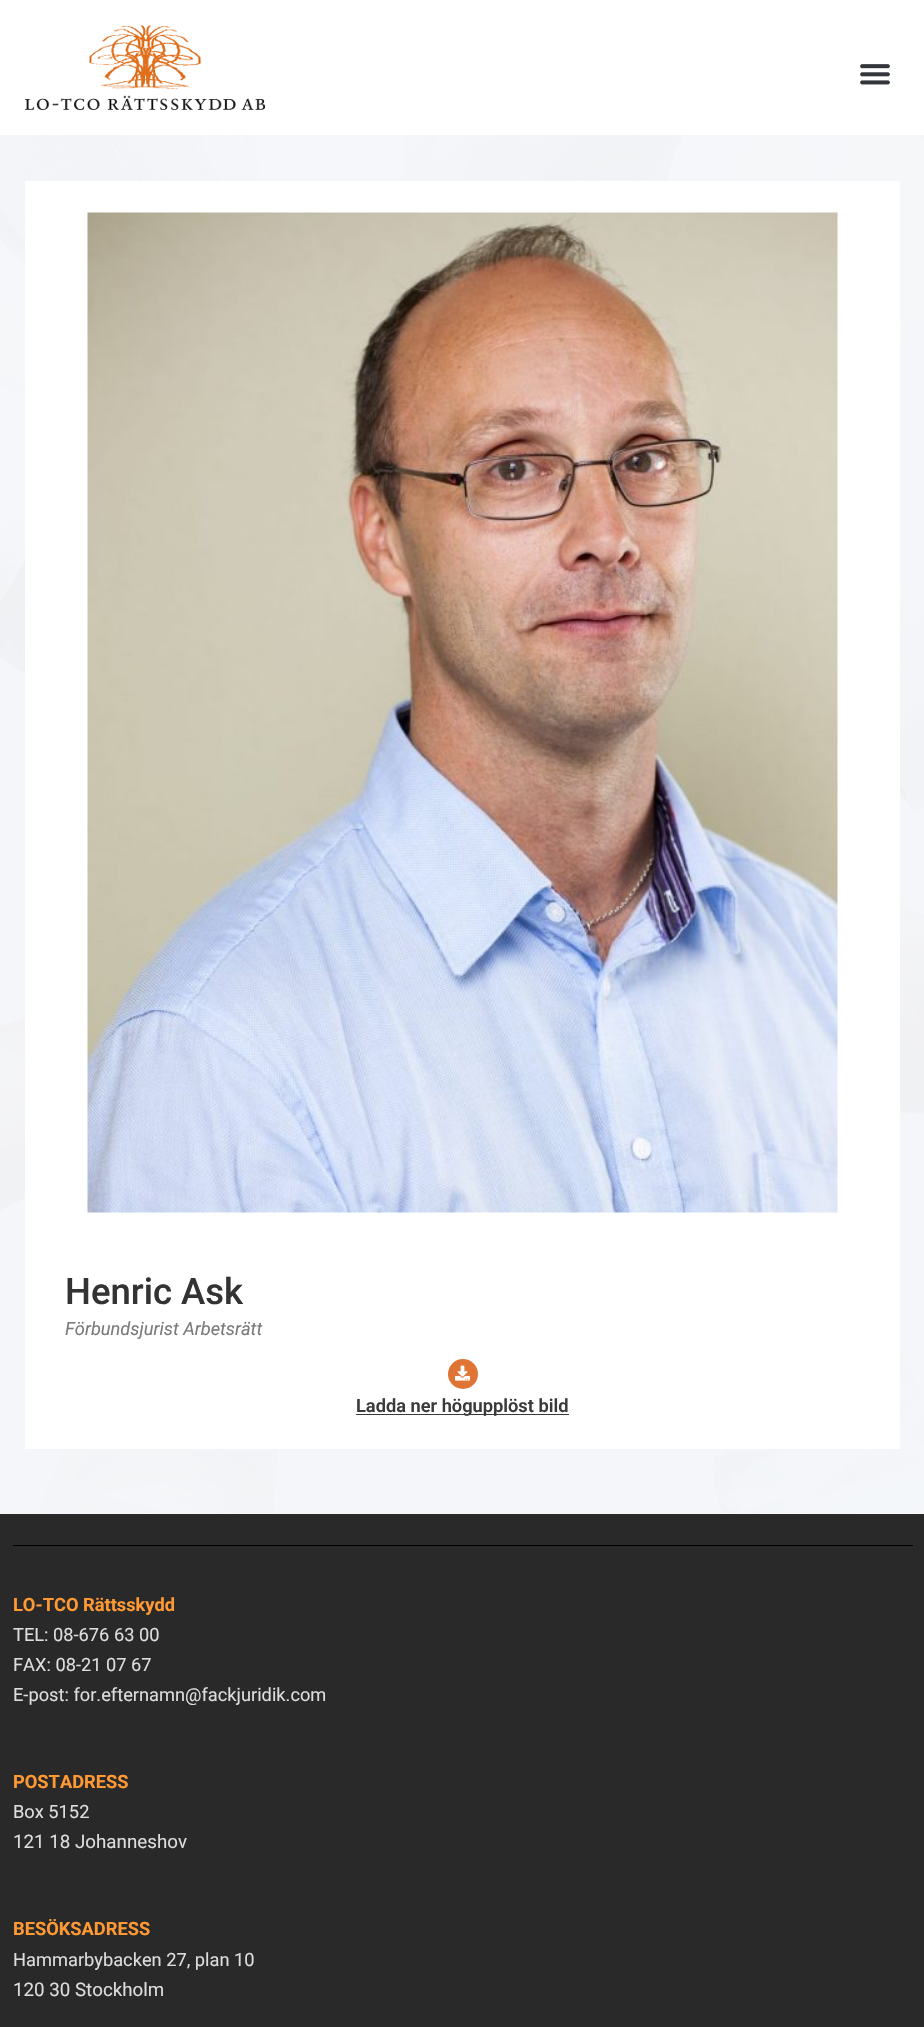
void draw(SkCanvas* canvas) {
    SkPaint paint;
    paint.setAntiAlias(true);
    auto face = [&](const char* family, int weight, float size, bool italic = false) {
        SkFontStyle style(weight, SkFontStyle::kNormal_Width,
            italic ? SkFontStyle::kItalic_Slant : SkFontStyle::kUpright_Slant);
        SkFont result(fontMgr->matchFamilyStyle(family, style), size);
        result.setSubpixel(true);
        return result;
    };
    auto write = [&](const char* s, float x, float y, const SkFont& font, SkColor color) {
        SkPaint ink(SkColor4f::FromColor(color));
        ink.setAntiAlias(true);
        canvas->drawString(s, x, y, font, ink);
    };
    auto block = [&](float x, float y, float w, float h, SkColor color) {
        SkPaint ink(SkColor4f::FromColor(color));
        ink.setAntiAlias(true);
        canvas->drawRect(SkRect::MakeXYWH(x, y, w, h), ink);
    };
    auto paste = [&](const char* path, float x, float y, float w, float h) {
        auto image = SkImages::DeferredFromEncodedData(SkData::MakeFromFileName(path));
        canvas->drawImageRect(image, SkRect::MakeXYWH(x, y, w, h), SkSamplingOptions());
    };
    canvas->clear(SK_ColorWHITE);
    paste("pic1.png", 25, 25, 240, 85);
    paste("pic2.png", 860, 64, 30, 21);
    paste("pic3.png", 0, 135, 924, 1379);
    block(25, 181, 875, 1268, SK_ColorWHITE);
    paste("pic4.png", 87, 212, 751, 1001);
    auto kFont1 = face("Roboto", 500, 36.5f);
    write("Henric Ask", 65, 1304, kFont1, SkColorSetRGB(51, 51, 51));
    auto kFont2 = face("Roboto", 400, 18.25f, true);
    write("Förbundsjurist Arbetsrätt", 65, 1335, kFont2, SkColorSetRGB(122, 122, 122));
    paint.setColor(SkColorSetRGB(224, 116, 52));
    canvas->drawCircle(463, 1374, 15, paint);
    paste("pic5.png", 455, 1365, 15, 16);
    block(356, 1414, 213, 1, SkColorSetRGB(58, 58, 58));
    auto kFont3 = face("Roboto", 600, 18.25f);
    write("Ladda ner högupplöst bild", 356, 1412, kFont3, SkColorSetRGB(58, 58, 58));
    block(0, 1514, 924, 513, SkColorSetRGB(41, 41, 41));
    block(13, 1545, 900, 1, SK_ColorBLACK);
    auto kFont4 = face("Roboto", 700, 18.25f);
    write("LO-TCO Rättsskydd", 13, 1611, kFont4, SkColorSetRGB(255, 153, 51));
    auto kFont5 = face("Roboto", 400, 18.25f);
    write("TEL: 08-676 63 00", 13, 1641, kFont5, SkColorSetRGB(221, 221, 221));
    write("FAX: 08-21 07 67", 13, 1671, kFont5, SkColorSetRGB(221, 221, 221));
    write("E-post: for.efternamn@fackjuridik.com", 13, 1701, kFont5, SkColorSetRGB(221, 221, 221));
    write("POSTADRESS", 13, 1788, kFont4, SkColorSetRGB(255, 153, 51));
    write("Box 5152", 13, 1818, kFont5, SkColorSetRGB(221, 221, 221));
    auto kFont6 = face("Roboto", 400, 18.75f);
    write("121 18 Johanneshov", 13, 1848, kFont6, SkColorSetRGB(221, 221, 221));
    write("BESÖKSADRESS", 13, 1935, kFont4, SkColorSetRGB(255, 153, 51));
    write("Hammarbybacken 27, plan 10", 13, 1966, kFont5, SkColorSetRGB(221, 221, 221));
    write("120 30 Stockholm", 13, 1996, kFont6, SkColorSetRGB(221, 221, 221));
}
